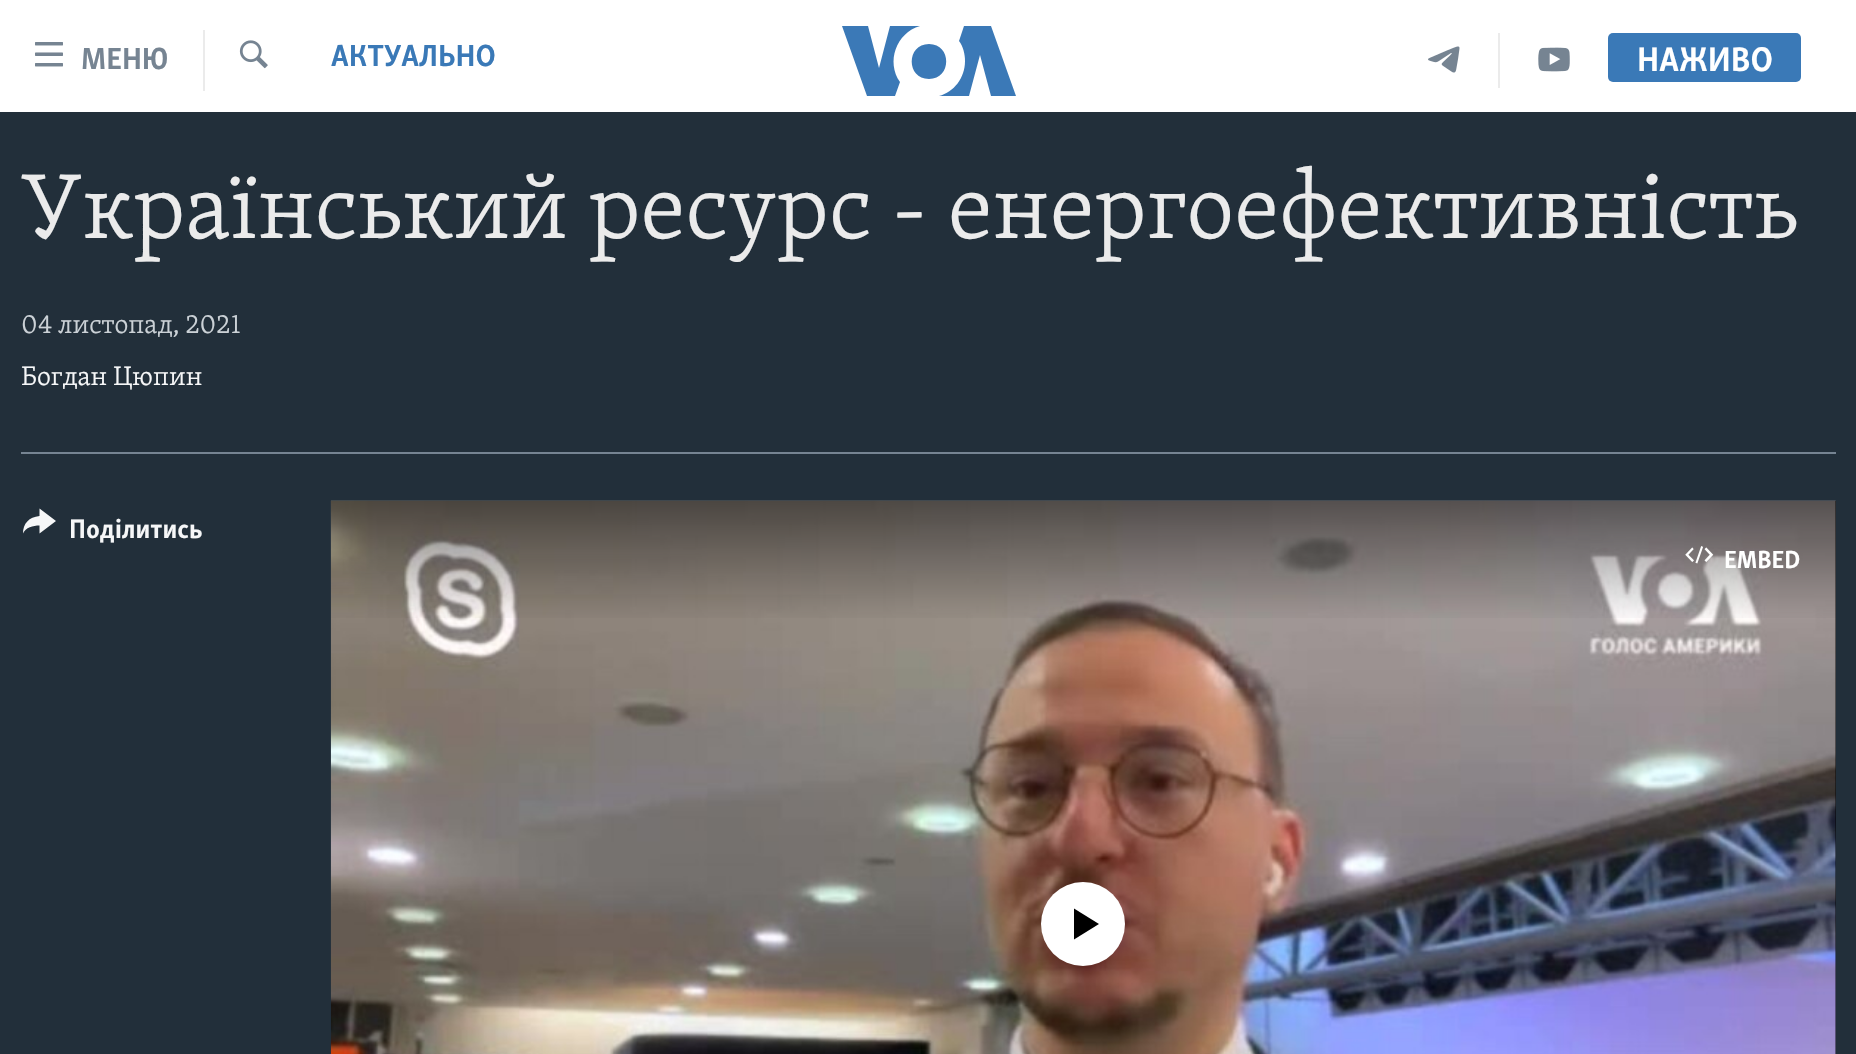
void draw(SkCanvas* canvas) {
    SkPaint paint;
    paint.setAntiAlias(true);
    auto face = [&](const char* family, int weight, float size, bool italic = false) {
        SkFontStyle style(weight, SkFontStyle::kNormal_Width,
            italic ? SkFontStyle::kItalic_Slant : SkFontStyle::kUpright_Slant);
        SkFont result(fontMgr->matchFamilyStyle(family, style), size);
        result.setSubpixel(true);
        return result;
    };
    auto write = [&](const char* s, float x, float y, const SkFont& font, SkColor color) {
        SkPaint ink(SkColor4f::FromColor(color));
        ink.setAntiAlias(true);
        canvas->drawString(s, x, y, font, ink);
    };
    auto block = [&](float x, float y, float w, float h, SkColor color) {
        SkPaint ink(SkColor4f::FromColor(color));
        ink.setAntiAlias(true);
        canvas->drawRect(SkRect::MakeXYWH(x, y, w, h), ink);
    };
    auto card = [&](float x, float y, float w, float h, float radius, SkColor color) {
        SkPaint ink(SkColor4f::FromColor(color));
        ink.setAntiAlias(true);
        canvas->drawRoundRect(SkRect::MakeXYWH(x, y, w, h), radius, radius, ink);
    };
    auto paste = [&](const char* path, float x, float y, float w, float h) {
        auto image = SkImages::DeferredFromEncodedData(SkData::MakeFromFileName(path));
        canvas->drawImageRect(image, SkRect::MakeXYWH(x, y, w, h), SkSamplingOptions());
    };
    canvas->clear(SK_ColorWHITE);
    paste("pic1.png", 35, 42, 28, 25);
    auto kFont1 = face("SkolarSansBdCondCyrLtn", 700, 31.5f);
    write("МЕНЮ", 81, 69, kFont1, SkColorSetRGB(118, 132, 146));
    block(203, 30, 2, 61, SkColorSetRGB(235, 235, 235));
    paste("pic2.png", 239, 40, 29, 29);
    write("АКТУАЛЬНО", 331, 66, kFont1, SkColorSetRGB(58, 121, 183));
    paint.setColor(SkColorSetRGB(59, 121, 183));
    canvas->drawPath(SkPathBuilder().moveTo(900, 82).lineTo(895, 96).lineTo(867, 96).lineTo(842, 26).lineTo(868, 26).lineTo(879, 68).lineTo(890, 26).lineTo(920, 26).cubicTo(896, 33, 886, 62, 900, 82).close().moveTo(929, 44).cubicTo(906, 44, 906, 79, 929, 79).cubicTo(952, 79, 952, 44, 929, 44).close().moveTo(965, 61).cubicTo(965, 78, 954, 92, 939, 96).lineTo(969, 96).lineTo(980, 55).lineTo(991, 96).lineTo(1016, 96).lineTo(991, 26).lineTo(964, 26).lineTo(959, 41).cubicTo(963, 46, 965, 54, 965, 61).close().detach(), paint);
    block(1498, 33, 2, 55, SkColorSetRGB(235, 235, 235));
    paste("pic3.png", 1428, 46, 32, 27);
    paste("pic4.png", 1538, 47, 32, 25);
    card(1608, 33, 193, 49, 5, SkColorSetRGB(58, 121, 183));
    auto kFont2 = face("SkolarSansBdCondCyrLtn", 700, 35);
    write("НАЖИВО", 1637, 71, kFont2, SK_ColorWHITE);
    block(0, 112, 1856, 942, SkColorSetRGB(34, 47, 58));
    auto kFont3 = face("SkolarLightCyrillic", 300, 94.5f);
    write("Український ресурс - енергоефективність", 21, 238, kFont3, SkColorSetRGB(235, 235, 235));
    auto kFont4 = face("SkolarLightCyrillic", 300, 27.5f);
    write("04 листопад, 2021", 21, 333, kFont4, SkColorSetRGB(203, 209, 214));
    write("Богдан Цюпин", 21, 385, kFont4, SkColorSetRGB(246, 247, 248));
    block(21, 452, 1815, 2, SkColorSetRGB(118, 132, 146));
    paint.setColor(SkColorSetRGB(246, 247, 248));
    canvas->drawPath(SkPathBuilder().moveTo(23, 533.5f).cubicTo(23, 523.5f, 29, 517, 39.5f, 516).lineTo(39.5f, 508.5f).lineTo(56, 521).lineTo(39.5f, 533.5f).lineTo(39.5f, 525.5f).cubicTo(33, 525.5f, 25.5f, 527.5f, 23, 533.5f).close().detach(), paint);
    auto kFont5 = face("SkolarSansBdCondCyrLtn", 700, 27.5f);
    write("Поділитись", 69, 538, kFont5, SkColorSetRGB(246, 247, 248));
    block(1835, 501, 1, 553, SK_ColorBLACK);
    paste("pic5.png", 330, 500, 1506, 554);
    {
        const SkColor colors[] = {SkColorSetARGB(128, 0, 0, 0), SkColorSetARGB(0, 0, 0, 0)};
        const float stops[] = {0, 1};
        const SkPoint ends[] = {{1083, 500}, {1083, 623}};
        paint.setShader(SkGradientShader::MakeLinear(ends, colors, stops, 2, SkTileMode::kClamp));
        paint.setAlpha(255);
    }
    canvas->drawRect(SkRect::MakeXYWH(331, 501, 1505, 117), paint);
    paste("pic6.png", 1685, 546, 29, 18);
    auto kFont6 = face("SkolarSansBdCondCyrLtn", 700, 25.5f);
    write("EMBED", 1724, 568, kFont6, SK_ColorWHITE);
    paint.setShader(nullptr);
    paint.setColor(SK_ColorWHITE);
    canvas->drawCircle(1083, 924, 42, paint);
    paint.setColor(SK_ColorBLACK);
    canvas->drawPath(SkPathBuilder().moveTo(1074, 939.5f).lineTo(1099, 924).lineTo(1074, 908.5f).close().detach(), paint);
}
